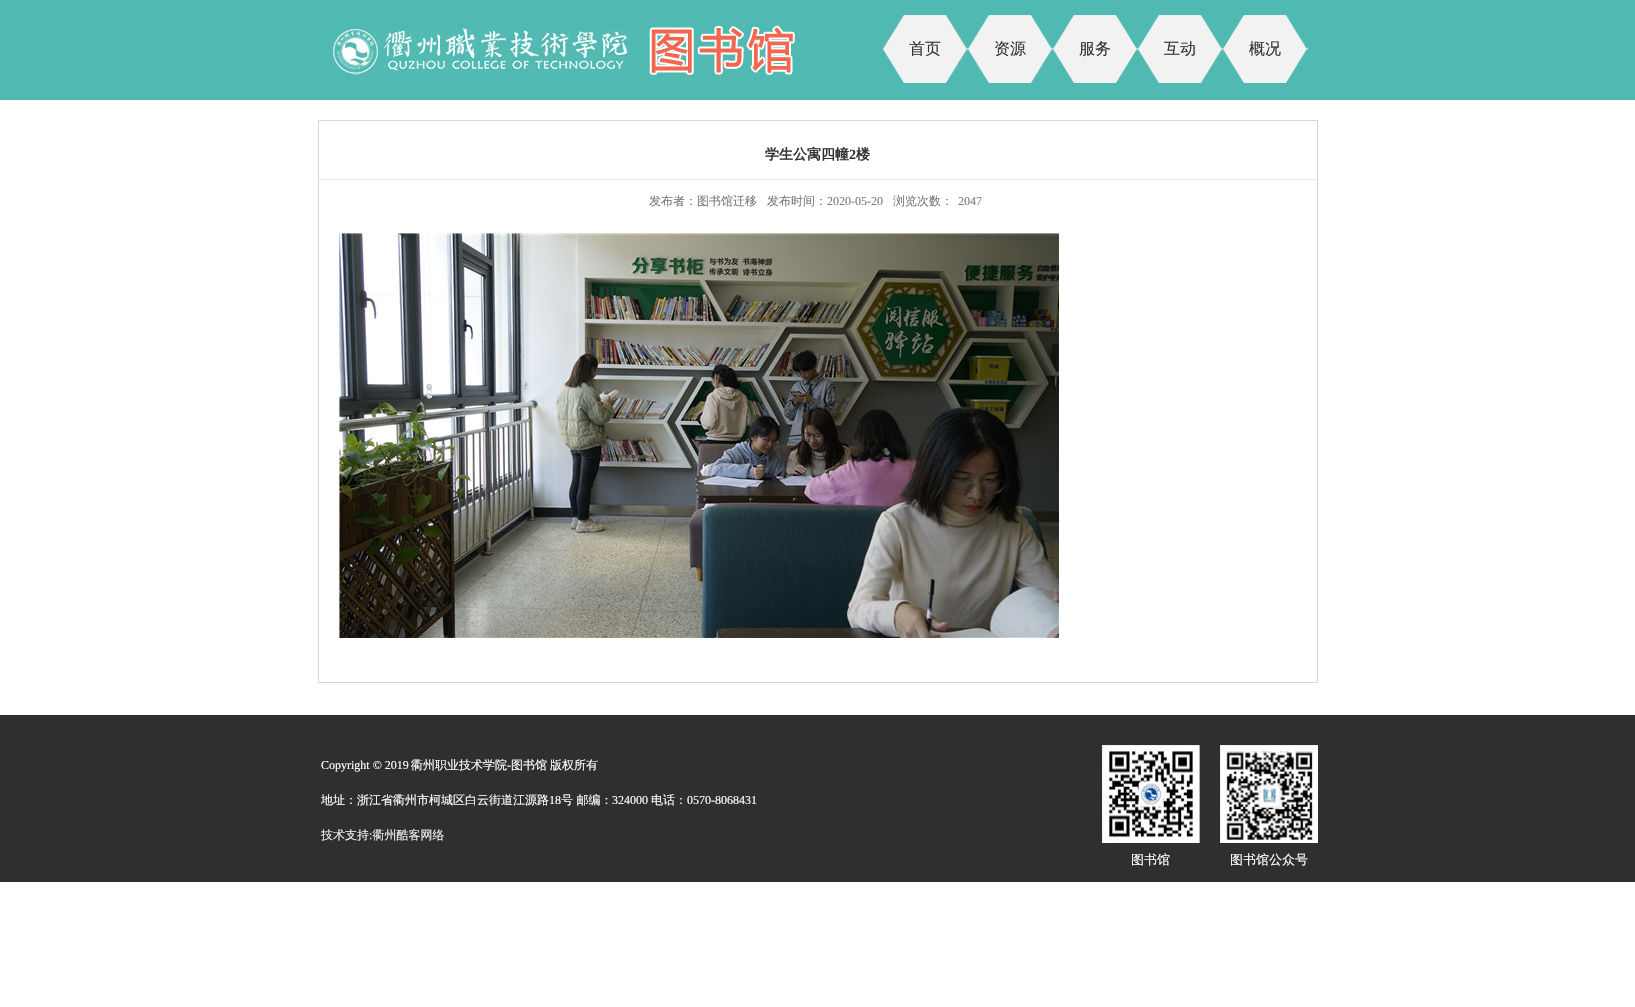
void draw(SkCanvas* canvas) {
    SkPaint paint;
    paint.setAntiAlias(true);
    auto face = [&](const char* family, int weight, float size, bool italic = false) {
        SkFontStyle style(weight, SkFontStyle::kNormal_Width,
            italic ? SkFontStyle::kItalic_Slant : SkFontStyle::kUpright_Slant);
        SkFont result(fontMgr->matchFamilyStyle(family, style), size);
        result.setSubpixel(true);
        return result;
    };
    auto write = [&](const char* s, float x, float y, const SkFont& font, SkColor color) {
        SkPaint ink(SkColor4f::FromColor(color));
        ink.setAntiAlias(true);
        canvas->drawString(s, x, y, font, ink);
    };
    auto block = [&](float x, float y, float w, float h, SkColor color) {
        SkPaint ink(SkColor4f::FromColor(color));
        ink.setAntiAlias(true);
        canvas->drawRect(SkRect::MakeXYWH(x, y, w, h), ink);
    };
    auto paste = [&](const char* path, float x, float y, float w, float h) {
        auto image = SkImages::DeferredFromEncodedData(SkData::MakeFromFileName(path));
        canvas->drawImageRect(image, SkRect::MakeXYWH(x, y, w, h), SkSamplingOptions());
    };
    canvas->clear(SK_ColorWHITE);
    block(0, 0, 1635, 100, SkColorSetRGB(80, 185, 178));
    paste("pic1.png", 331, 14, 469, 64);
    paste("pic2.png", 883, 15, 85, 68);
    auto kFont1 = face("WenQuanYi Zen Hei", 500, 16);
    write("首页", 909, 54, kFont1, SkColorSetRGB(51, 51, 51));
    paste("pic2.png", 968, 15, 85, 68);
    write("资源", 994, 54, kFont1, SkColorSetRGB(51, 51, 51));
    paste("pic2.png", 1053, 15, 85, 68);
    write("服务", 1079, 54, kFont1, SkColorSetRGB(51, 51, 51));
    paste("pic2.png", 1138, 15, 85, 68);
    write("互动", 1164, 54, kFont1, SkColorSetRGB(51, 51, 51));
    paste("pic2.png", 1223, 15, 85, 68);
    write("概况", 1249, 54, kFont1, SkColorSetRGB(51, 51, 51));
    paint.setStyle(SkPaint::kStroke_Style);
    paint.setStrokeWidth(1);
    paint.setColor(SkColorSetRGB(214, 214, 214));
    canvas->drawRect(SkRect::MakeXYWH(318.5f, 120.5f, 999, 562), paint);
    auto kFont2 = face("WenQuanYi Zen Hei", 700, 14);
    write("学生公寓四幢", 765, 159, kFont2, SkColorSetRGB(51, 51, 51));
    auto kFont3 = face("Liberation Serif", 700, 14);
    write("2", 849, 159, kFont3, SkColorSetRGB(51, 51, 51));
    write("楼", 856, 159, kFont2, SkColorSetRGB(51, 51, 51));
    block(319, 179, 998, 1, SkColorSetRGB(236, 236, 236));
    auto kFont4 = face("WenQuanYi Zen Hei", 500, 12);
    write("发布者：图书馆迁移", 649, 205, kFont4, SkColorSetRGB(120, 120, 120));
    write("发布时间：", 767, 205, kFont4, SkColorSetRGB(120, 120, 120));
    auto kFont5 = face("Liberation Serif", 400, 12);
    write("2020-05-20", 827, 205, kFont5, SkColorSetRGB(120, 120, 120));
    write("浏览次数：", 893, 205, kFont4, SkColorSetRGB(120, 120, 120));
    write("2047", 958, 205, kFont5, SkColorSetRGB(120, 120, 120));
    paste("pic3.png", 339, 233, 720, 405);
    block(0, 715, 1635, 167, SkColorSetRGB(47, 47, 47));
    write("Copyright © 2019", 321, 769, kFont5, SK_ColorWHITE);
    write("衢州职业技术学院", 411, 769, kFont4, SK_ColorWHITE);
    write("-", 507, 769, kFont5, SK_ColorWHITE);
    write("图书馆", 511, 769, kFont4, SK_ColorWHITE);
    write("版权所有", 550, 769, kFont4, SK_ColorWHITE);
    write("地址：浙江省衢州市柯城区白云街道江源路", 321, 804, kFont4, SK_ColorWHITE);
    write("18", 549, 804, kFont5, SK_ColorWHITE);
    write("号 邮编：", 561, 804, kFont4, SK_ColorWHITE);
    write("324000", 612, 804, kFont5, SK_ColorWHITE);
    write("电话：", 651, 804, kFont4, SK_ColorWHITE);
    write("0570-8068431", 687, 804, kFont5, SK_ColorWHITE);
    write("技术支持 衢州酷客网络", 321, 839, kFont4, SkColorSetRGB(238, 238, 238));
    write(":", 369, 839, kFont5, SkColorSetRGB(238, 238, 238));
    paste("pic4.png", 1102, 745, 98, 98);
    auto kFont6 = face("WenQuanYi Zen Hei", 500, 13);
    write("图书馆", 1131, 864, kFont6, SK_ColorWHITE);
    paste("pic5.png", 1220, 745, 98, 98);
    write("图书馆公众号", 1230, 864, kFont6, SK_ColorWHITE);
}
